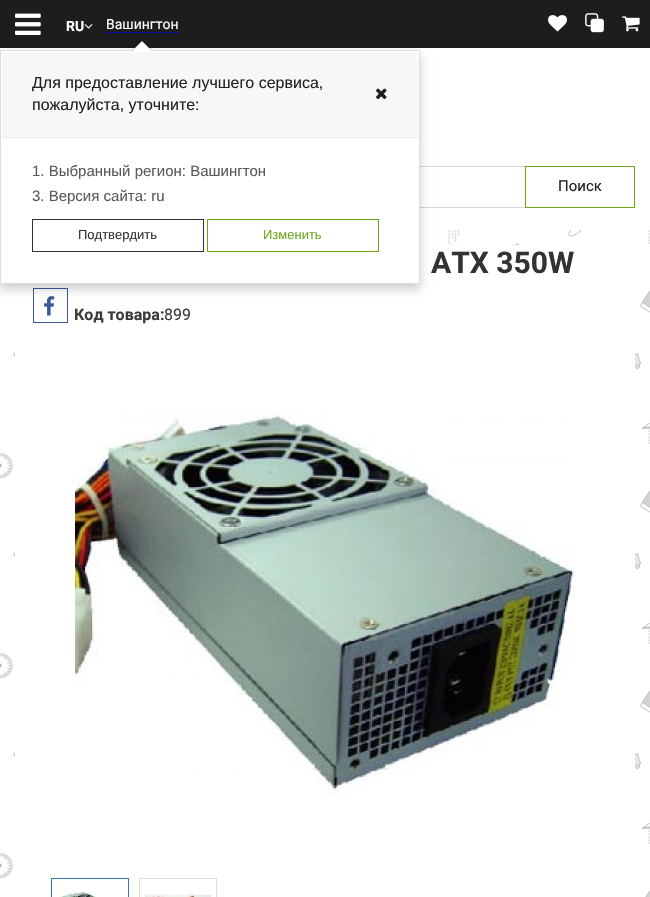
void draw(SkCanvas* canvas) {
    SkPaint paint;
    paint.setAntiAlias(true);
    auto face = [&](const char* family, int weight, float size, bool italic = false) {
        SkFontStyle style(weight, SkFontStyle::kNormal_Width,
            italic ? SkFontStyle::kItalic_Slant : SkFontStyle::kUpright_Slant);
        SkFont result(fontMgr->matchFamilyStyle(family, style), size);
        result.setSubpixel(true);
        return result;
    };
    auto write = [&](const char* s, float x, float y, const SkFont& font, SkColor color) {
        SkPaint ink(SkColor4f::FromColor(color));
        ink.setAntiAlias(true);
        canvas->drawString(s, x, y, font, ink);
    };
    auto block = [&](float x, float y, float w, float h, SkColor color) {
        SkPaint ink(SkColor4f::FromColor(color));
        ink.setAntiAlias(true);
        canvas->drawRect(SkRect::MakeXYWH(x, y, w, h), ink);
    };
    auto paste = [&](const char* path, float x, float y, float w, float h) {
        auto image = SkImages::DeferredFromEncodedData(SkData::MakeFromFileName(path));
        canvas->drawImageRect(image, SkRect::MakeXYWH(x, y, w, h), SkSamplingOptions());
    };
    canvas->clear(SK_ColorWHITE);
    paste("pic1.png", 0, 230, 650, 667);
    block(0, 0, 650, 48, SkColorSetRGB(29, 29, 29));
    paste("pic2.png", 15, 13, 26, 22);
    auto kFont1 = face("Roboto", 400, 14);
    write("Вашингтон", 106, 29, kFont1, SK_ColorWHITE);
    paint.setStyle(SkPaint::kStroke_Style);
    paint.setStrokeWidth(1);
    paint.setColor(SkColorSetRGB(0, 0, 255));
    paint.setPathEffect(SkDashPathEffect::Make({{3, 1.93f}}, 0));
    canvas->drawPath(SkPathBuilder().moveTo(106, 32.5f).lineTo(178, 32.5f).detach(), paint);
    paint.setPathEffect(nullptr);
    paint.setColor(SkColorSetRGB(210, 218, 225));
    canvas->drawRect(SkRect::MakeXYWH(15.5f, 166.5f, 510, 41), paint);
    block(15, 245, 620, 652, SK_ColorWHITE);
    paint.setColor(SkColorSetRGB(59, 89, 152));
    canvas->drawRect(SkRect::MakeXYWH(33.5f, 288.5f, 34, 34), paint);
    paste("pic8.png", 44, 296, 11, 20);
    paint.setStyle(SkPaint::kFill_Style);
    paint.setColor(SkColorSetARGB(51, 0, 0, 0));
    paint.setMaskFilter(SkMaskFilter::MakeBlur(kNormal_SkBlurStyle, 5));
    canvas->drawRect(SkRect::MakeXYWH(0, 55, 420, 234), paint);
    paint.setMaskFilter(nullptr);
    paint.setColor(SK_ColorWHITE);
    canvas->drawRect(SkRect::MakeXYWH(0.5f, 50.5f, 419, 233), paint);
    paint.setStyle(SkPaint::kStroke_Style);
    paint.setColor(SkColorSetRGB(221, 221, 221));
    canvas->drawRect(SkRect::MakeXYWH(0.5f, 50.5f, 419, 233), paint);
    paint.setStyle(SkPaint::kFill_Style);
    paint.setColor(SkColorSetARGB(64, 0, 0, 0));
    canvas->drawPath(SkPathBuilder().moveTo(153, 51).lineTo(131, 51).lineTo(142, 40).close().detach(), paint);
    paint.setColor(SK_ColorWHITE);
    canvas->drawPath(SkPathBuilder().moveTo(152, 51).lineTo(132, 51).lineTo(142, 41).close().detach(), paint);
    block(2, 52, 416, 85, SkColorSetRGB(247, 247, 247));
    block(2, 137, 416, 1, SkColorSetRGB(235, 235, 235));
    auto kFont2 = face("Liberation Sans", 400, 16);
    write("Для предоставление лучшего сервиса,", 32, 88, kFont2, SkColorSetRGB(34, 34, 34));
    paste("pic3.png", 376, 88, 11, 12);
    write("пожалуйста, уточните:", 32, 110, kFont2, SkColorSetRGB(34, 34, 34));
    auto kFont3 = face("Liberation Sans", 400, 15);
    write("1. Выбранный регион: Вашингтон", 32, 176, kFont3, SkColorSetRGB(89, 89, 89));
    write("3. Версия сайта: ru", 32, 201, kFont3, SkColorSetRGB(89, 89, 89));
    paint.setStyle(SkPaint::kStroke_Style);
    paint.setColor(SkColorSetRGB(51, 51, 51));
    canvas->drawRect(SkRect::MakeXYWH(32.5f, 219.5f, 171, 32), paint);
    auto kFont4 = face("Liberation Sans", 400, 13);
    write("Подтвердить", 78, 239, kFont4, SkColorSetRGB(51, 51, 51));
    paint.setColor(SkColorSetRGB(107, 169, 27));
    canvas->drawRect(SkRect::MakeXYWH(207.5f, 219.5f, 171, 32), paint);
    write("Изменить", 263, 239, kFont4, SkColorSetRGB(107, 169, 27));
    paste("pic4.png", 548, 15, 19, 17);
    paste("pic5.png", 585, 13, 19, 20);
    paste("pic6.png", 622, 16, 18, 16);
    auto kFont5 = face("Roboto", 700, 14);
    write("RU", 66, 31, kFont5, SK_ColorWHITE);
    paste("pic7.png", 84, 24, 9, 5);
    canvas->drawRect(SkRect::MakeXYWH(525.5f, 166.5f, 109, 41), paint);
    auto kFont6 = face("Roboto", 400, 15);
    write("Поиск", 558, 191, kFont6, SkColorSetRGB(34, 34, 34));
    auto kFont7 = face("Roboto", 700, 30);
    write("ATX 350W", 431, 273, kFont7, SkColorSetRGB(51, 51, 51));
    auto kFont8 = face("Roboto", 700, 16);
    write("Код товара:", 74, 320, kFont8, SkColorSetRGB(60, 60, 60));
    auto kFont9 = face("Roboto", 400, 16);
    write("899", 164, 320, kFont9, SkColorSetRGB(60, 60, 60));
    paste("pic9.png", 75, 410, 500, 387);
    paint.setColor(SkColorSetRGB(51, 122, 183));
    canvas->drawRect(SkRect::MakeXYWH(51.5f, 878.5f, 77, 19), paint);
    paste("pic10.png", 61, 892, 35, 5);
    paint.setColor(SkColorSetRGB(221, 221, 221));
    canvas->drawRect(SkRect::MakeXYWH(139.5f, 878.5f, 77, 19), paint);
    paste("pic11.png", 145, 890, 66, 7);
}
